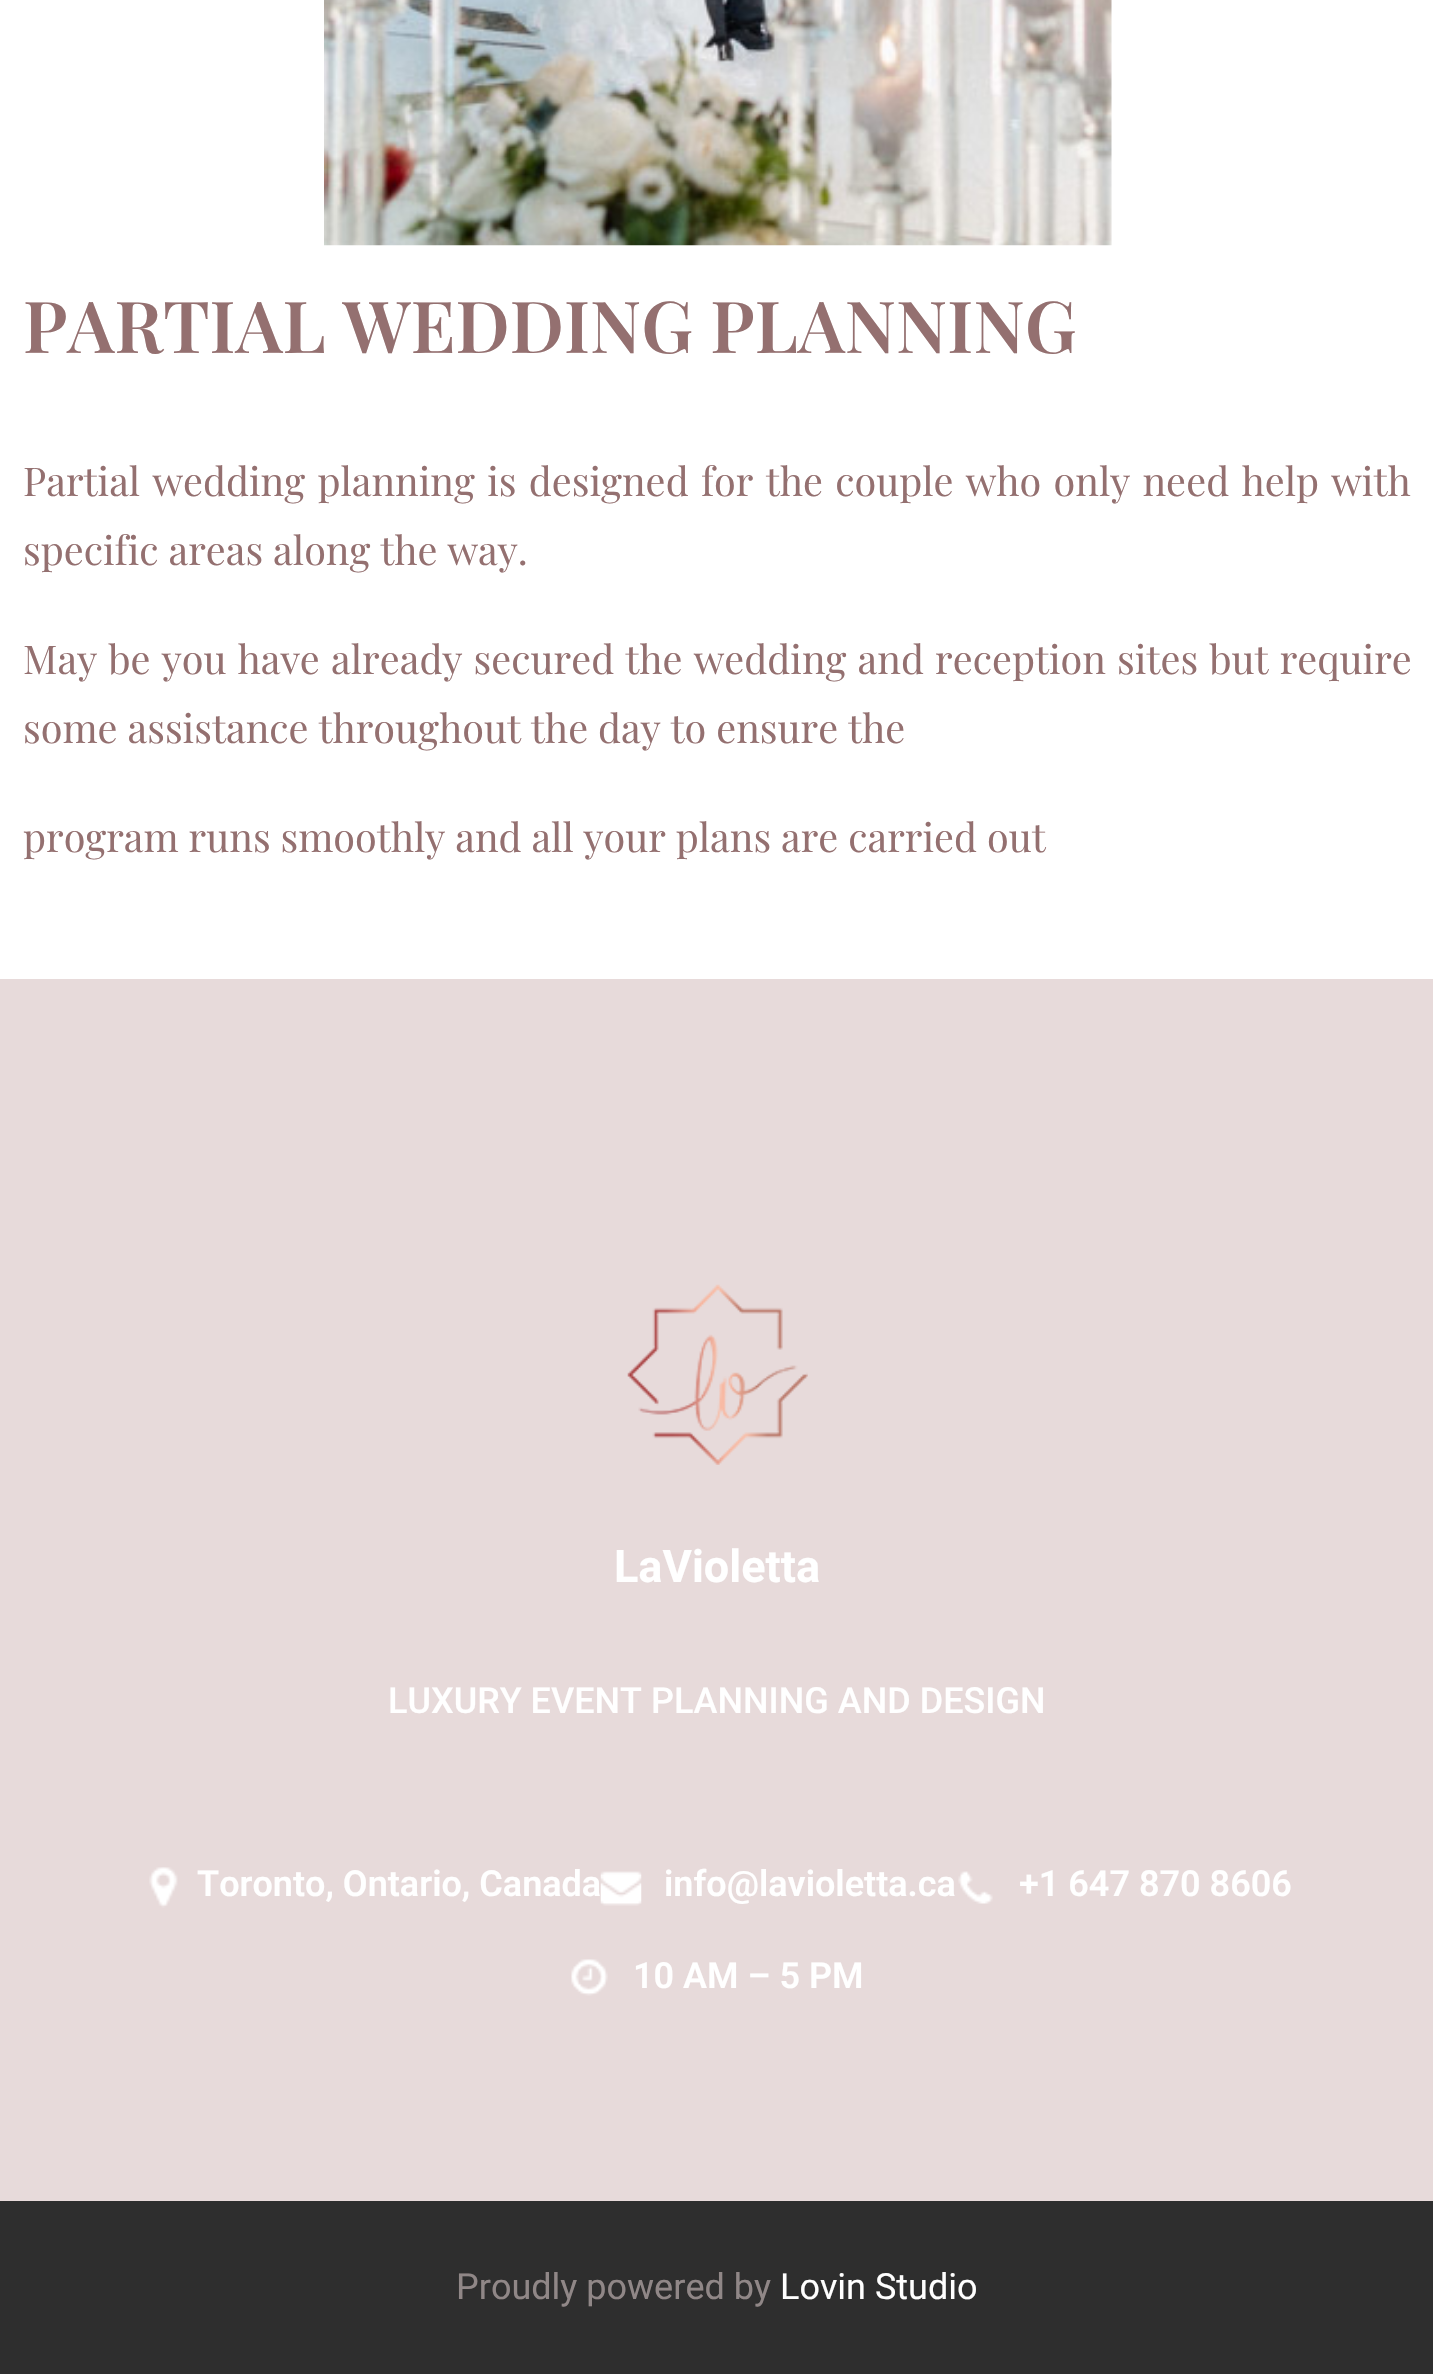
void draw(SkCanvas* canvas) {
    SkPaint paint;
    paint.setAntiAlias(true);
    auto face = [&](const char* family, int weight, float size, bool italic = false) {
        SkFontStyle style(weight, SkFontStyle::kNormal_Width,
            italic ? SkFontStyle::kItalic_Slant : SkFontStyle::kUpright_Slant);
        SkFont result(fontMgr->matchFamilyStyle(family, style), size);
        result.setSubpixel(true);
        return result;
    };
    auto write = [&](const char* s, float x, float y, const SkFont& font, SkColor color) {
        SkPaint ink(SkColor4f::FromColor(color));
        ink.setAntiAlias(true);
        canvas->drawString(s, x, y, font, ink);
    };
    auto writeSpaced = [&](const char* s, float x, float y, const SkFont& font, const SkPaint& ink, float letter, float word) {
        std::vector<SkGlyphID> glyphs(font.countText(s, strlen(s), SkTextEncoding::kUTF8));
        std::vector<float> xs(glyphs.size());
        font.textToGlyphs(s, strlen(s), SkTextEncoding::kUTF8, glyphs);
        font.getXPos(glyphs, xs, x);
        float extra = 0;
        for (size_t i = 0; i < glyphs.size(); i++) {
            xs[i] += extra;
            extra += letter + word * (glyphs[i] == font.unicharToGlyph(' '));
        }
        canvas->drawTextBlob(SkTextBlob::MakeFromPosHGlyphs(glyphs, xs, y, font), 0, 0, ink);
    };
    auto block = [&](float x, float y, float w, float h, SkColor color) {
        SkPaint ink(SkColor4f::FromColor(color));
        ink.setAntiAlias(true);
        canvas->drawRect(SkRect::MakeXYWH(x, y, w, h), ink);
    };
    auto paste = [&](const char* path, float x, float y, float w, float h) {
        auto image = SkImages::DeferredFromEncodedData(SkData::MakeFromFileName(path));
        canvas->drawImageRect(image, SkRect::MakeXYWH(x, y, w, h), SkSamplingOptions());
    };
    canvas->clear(SK_ColorWHITE);
    paste("pic1.png", 324, 0, 788, 246);
    auto kFont1 = face("Playfair Display", 600, 71.6f);
    write("PARTIAL WEDDING PLANNING", 23, 353, kFont1, SkColorSetRGB(148, 112, 112));
    auto kFont2 = face("Playfair Display", 400, 39.6f);
    paint.setColor(SkColorSetRGB(148, 112, 112));
    writeSpaced("Partial wedding planning is designed for the couple who only need help with", 23, 496, kFont2, paint, 0, 2.4f);
    write("specific areas along the way.", 23, 565, kFont2, SkColorSetRGB(148, 112, 112));
    writeSpaced("May be you have already secured the wedding and reception sites but require", 23, 674, kFont2, paint, 0, 1.25f);
    write("some assistance throughout the day to ensure the", 23, 743, kFont2, SkColorSetRGB(148, 112, 112));
    write("program runs smoothly and all your plans are carried out", 23, 852, kFont2, SkColorSetRGB(148, 112, 112));
    block(0, 979, 1433, 1222, SkColorSetRGB(231, 218, 218));
    paste("pic2.png", 627, 1284, 181, 181);
    auto kFont3 = face("Roboto", 700, 45);
    write("LaVioletta", 614, 1582, kFont3, SK_ColorWHITE);
    auto kFont4 = face("Roboto", 500, 36);
    write("LUXURY EVENT PLANNING AND DESIGN", 388, 1713, kFont4, SK_ColorWHITE);
    paste("pic3.png", 149, 1867, 29, 41);
    auto kFont5 = face("Roboto", 600, 36);
    write("Toronto, Ontario, Canada", 197, 1896, kFont5, SK_ColorWHITE);
    paste("pic4.png", 600, 1871, 42, 35);
    write("info@lavioletta.ca", 664, 1896, kFont5, SK_ColorWHITE);
    paste("pic5.png", 958, 1871, 35, 33);
    write("+1 647 870 8606", 1019, 1896, kFont5, SK_ColorWHITE);
    paste("pic6.png", 571, 1959, 37, 37);
    write("10 AM – 5 PM", 633, 1988, kFont5, SK_ColorWHITE);
    block(0, 2201, 1433, 173, SkColorSetRGB(46, 46, 46));
    auto kFont6 = face("Roboto", 400, 36);
    write("Proudly powered by", 456, 2299, kFont6, SkColorSetRGB(144, 135, 135));
    write("Lovin Studio", 780, 2299, kFont6, SK_ColorWHITE);
}
